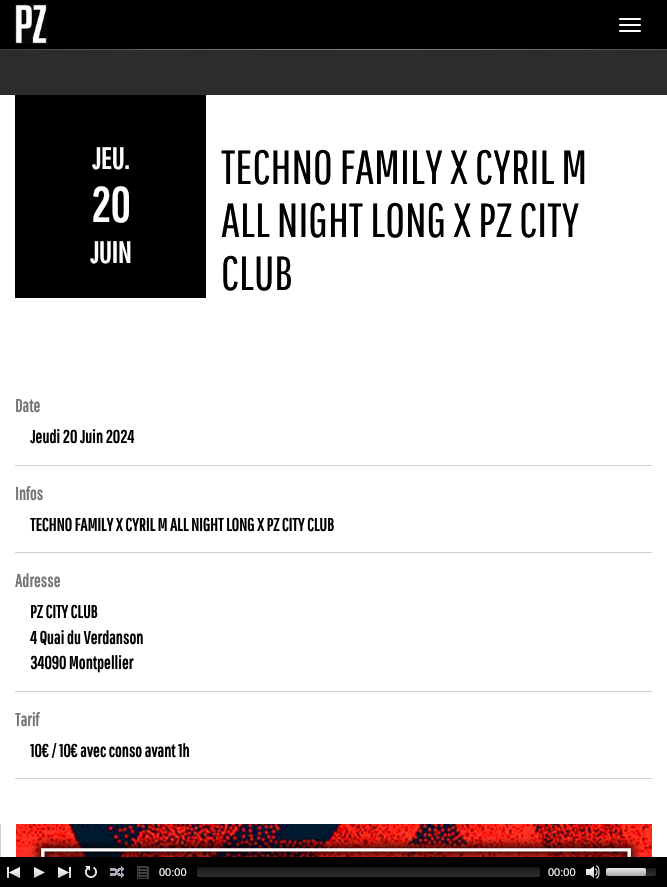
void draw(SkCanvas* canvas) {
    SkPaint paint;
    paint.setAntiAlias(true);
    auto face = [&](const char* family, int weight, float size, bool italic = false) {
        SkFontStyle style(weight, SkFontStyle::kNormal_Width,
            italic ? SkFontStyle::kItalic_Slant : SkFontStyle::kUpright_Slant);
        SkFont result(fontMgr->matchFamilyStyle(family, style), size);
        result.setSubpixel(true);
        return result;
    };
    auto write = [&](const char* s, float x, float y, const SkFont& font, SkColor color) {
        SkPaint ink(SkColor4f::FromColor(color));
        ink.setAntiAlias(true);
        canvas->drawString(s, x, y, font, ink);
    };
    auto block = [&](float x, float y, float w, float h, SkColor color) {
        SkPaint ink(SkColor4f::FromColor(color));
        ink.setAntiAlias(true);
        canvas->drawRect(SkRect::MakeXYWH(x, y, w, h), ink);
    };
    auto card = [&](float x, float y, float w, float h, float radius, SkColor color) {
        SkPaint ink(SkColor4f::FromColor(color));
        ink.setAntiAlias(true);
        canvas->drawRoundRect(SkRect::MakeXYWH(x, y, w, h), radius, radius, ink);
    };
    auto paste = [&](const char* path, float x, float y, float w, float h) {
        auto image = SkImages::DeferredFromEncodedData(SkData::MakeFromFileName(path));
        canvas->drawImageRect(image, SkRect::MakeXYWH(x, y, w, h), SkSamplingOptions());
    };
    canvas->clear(SK_ColorBLACK);
    paste("pic1.png", 0, 49, 667, 1);
    paste("pic2.png", 15, 4, 32, 40);
    card(619, 18, 22, 2, 1, SK_ColorWHITE);
    card(619, 24, 22, 2, 1, SK_ColorWHITE);
    card(619, 30, 22, 2, 1, SK_ColorWHITE);
    block(0, 50, 667, 45, SkColorSetRGB(44, 44, 44));
    block(0, 95, 667, 762, SK_ColorWHITE);
    block(15, 95, 191, 203, SK_ColorBLACK);
    auto kFont1 = face("Pathway Gothic One", 700, 30);
    write("JEU.", 92, 169, kFont1, SK_ColorWHITE);
    auto kFont2 = face("Pathway Gothic One", 700, 48);
    write("20", 91, 222, kFont2, SK_ColorWHITE);
    write("JUIN", 90, 263, kFont1, SK_ColorWHITE);
    auto kFont3 = face("Pathway Gothic One", 400, 48);
    write("TECHNO FAMILY X CYRIL M", 221, 184, kFont3, SK_ColorBLACK);
    write("ALL NIGHT LONG X PZ CITY", 221, 237, kFont3, SK_ColorBLACK);
    write("CLUB", 221, 290, kFont3, SK_ColorBLACK);
    block(15, 465, 637, 1, SkColorSetRGB(208, 208, 208));
    auto kFont4 = face("Pathway Gothic One", 700, 18);
    write("Date", 15, 412, kFont4, SkColorSetRGB(117, 117, 117));
    write("Jeudi 20 Juin 2024", 30, 443, kFont4, SK_ColorBLACK);
    block(15, 552, 637, 1, SkColorSetRGB(208, 208, 208));
    write("Infos", 15, 500, kFont4, SkColorSetRGB(117, 117, 117));
    write("TECHNO FAMILY X CYRIL M ALL NIGHT LONG X PZ CITY CLUB", 30, 531, kFont4, SK_ColorBLACK);
    block(15, 691, 637, 1, SkColorSetRGB(208, 208, 208));
    write("Adresse", 15, 587, kFont4, SkColorSetRGB(117, 117, 117));
    write("PZ CITY CLUB", 30, 618, kFont4, SK_ColorBLACK);
    write("4 Quai du Verdanson", 30, 644, kFont4, SK_ColorBLACK);
    write("34090 Montpellier", 30, 669, kFont4, SK_ColorBLACK);
    block(15, 778, 637, 1, SkColorSetRGB(208, 208, 208));
    write("Tarif", 15, 726, kFont4, SkColorSetRGB(117, 117, 117));
    write("10€ / 10€ avec conso avant 1h", 30, 757, kFont4, SK_ColorBLACK);
    block(0, 824, 1, 33, SkColorSetRGB(208, 208, 208));
    paste("pic3.png", 16, 824, 636, 33);
    paste("pic4.png", 7, 867, 13, 11);
    paste("pic5.png", 34, 867, 11, 11);
    paste("pic6.png", 58, 867, 13, 11);
    paste("pic7.png", 85, 866, 12, 12);
    paste("pic8.png", 110, 866, 14, 12);
    paste("pic9.png", 137, 866, 12, 13);
    auto kFont5 = face("Liberation Sans", 400, 11);
    write("00:00", 159, 876, kFont5, SK_ColorWHITE);
    {
        const SkColor colors[] = {SkColorSetRGB(24, 24, 24), SkColorSetRGB(48, 48, 48)};
        const float stops[] = {0, 1};
        const SkPoint ends[] = {{369, 867}, {369, 877}};
        paint.setShader(SkGradientShader::MakeLinear(ends, colors, stops, 2, SkTileMode::kClamp));
        paint.setAlpha(255);
    }
    canvas->drawRoundRect(SkRect::MakeXYWH(197, 867, 343, 10), 2, 2, paint);
    write("00:00", 548, 876, kFont5, SK_ColorWHITE);
    paste("pic10.png", 586, 865, 14, 14);
    {
        const SkColor colors[] = {SkColorSetRGB(24, 24, 24), SkColorSetRGB(48, 48, 48)};
        const float stops[] = {0, 1};
        const SkPoint ends[] = {{631, 868}, {631, 876}};
        paint.setShader(SkGradientShader::MakeLinear(ends, colors, stops, 2, SkTileMode::kClamp));
        paint.setAlpha(255);
    }
    canvas->drawRoundRect(SkRect::MakeXYWH(606, 868, 50, 8), 2, 2, paint);
    {
        const SkColor colors[] = {SkColorSetARGB(230, 255, 255, 255), SkColorSetARGB(204, 200, 200, 200)};
        const float stops[] = {0, 1};
        const SkPoint ends[] = {{626, 868}, {626, 876}};
        paint.setShader(SkGradientShader::MakeLinear(ends, colors, stops, 2, SkTileMode::kClamp));
        paint.setAlpha(255);
    }
    canvas->drawRoundRect(SkRect::MakeXYWH(606, 868, 40, 8), 2, 2, paint);
}
